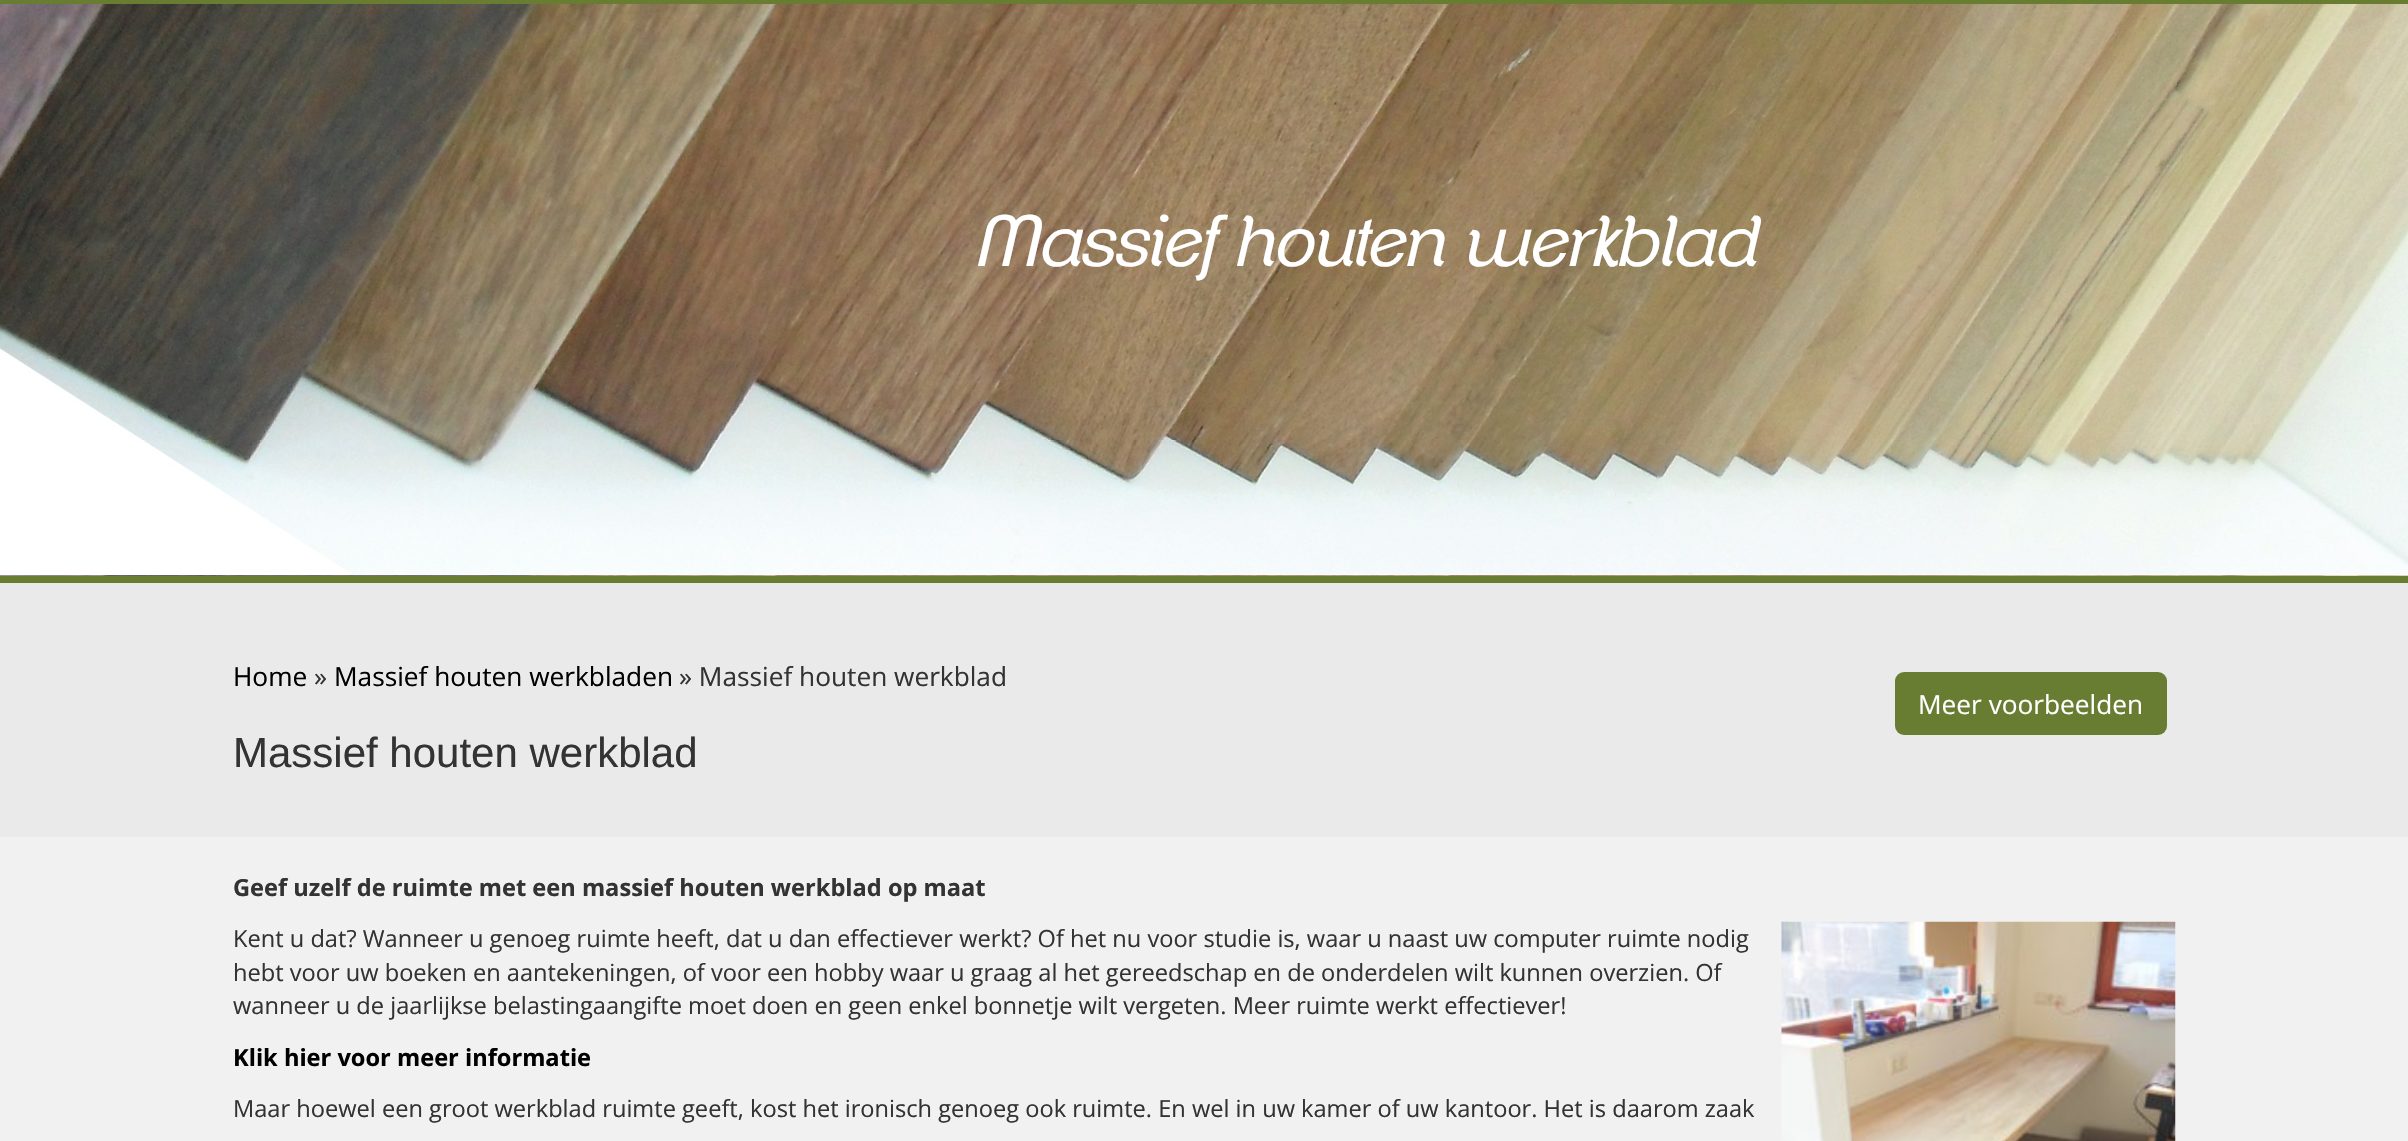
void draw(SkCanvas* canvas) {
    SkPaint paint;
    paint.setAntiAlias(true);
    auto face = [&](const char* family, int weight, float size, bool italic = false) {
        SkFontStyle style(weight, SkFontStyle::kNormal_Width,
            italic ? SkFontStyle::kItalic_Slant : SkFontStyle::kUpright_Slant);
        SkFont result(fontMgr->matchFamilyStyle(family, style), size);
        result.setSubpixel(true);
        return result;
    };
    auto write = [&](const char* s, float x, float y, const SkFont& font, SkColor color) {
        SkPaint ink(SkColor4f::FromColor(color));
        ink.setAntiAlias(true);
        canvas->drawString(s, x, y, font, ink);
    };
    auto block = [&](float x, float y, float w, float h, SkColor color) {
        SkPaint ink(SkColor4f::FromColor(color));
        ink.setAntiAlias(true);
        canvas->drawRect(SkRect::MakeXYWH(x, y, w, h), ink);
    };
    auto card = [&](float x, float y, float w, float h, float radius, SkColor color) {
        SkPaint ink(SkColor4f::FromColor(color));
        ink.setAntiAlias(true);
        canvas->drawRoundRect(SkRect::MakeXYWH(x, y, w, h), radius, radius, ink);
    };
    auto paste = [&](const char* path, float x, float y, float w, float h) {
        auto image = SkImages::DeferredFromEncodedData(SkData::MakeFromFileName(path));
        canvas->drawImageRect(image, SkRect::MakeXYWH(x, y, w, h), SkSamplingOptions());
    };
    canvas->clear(SkColorSetRGB(241, 241, 241));
    block(0, 0, 2408, 4, SkColorSetRGB(104, 125, 50));
    paste("pic1.png", 0, 4, 2408, 572);
    block(0, 576, 2408, 7, SkColorSetRGB(104, 125, 50));
    auto kFont1 = face("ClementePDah", 400, 70, true);
    write("Massief houten werkblad", 980, 266, kFont1, SK_ColorWHITE);
    block(0, 583, 2408, 254, SkColorSetRGB(234, 234, 234));
    auto kFont2 = face("Open Sans", 400, 26.25f);
    write("Home", 233, 686, kFont2, SK_ColorBLACK);
    write("»", 314, 686, kFont2, SkColorSetRGB(51, 51, 51));
    write("Massief houten werkbladen", 334, 686, kFont2, SK_ColorBLACK);
    write("» Massief houten werkblad", 679, 686, kFont2, SkColorSetRGB(51, 51, 51));
    auto kFont3 = face("Liberation Sans", 400, 42);
    write("Massief houten werkblad", 233, 767, kFont3, SkColorSetRGB(51, 51, 51));
    card(1895, 672, 272, 63, 9, SkColorSetRGB(104, 125, 50));
    write("Meer voorbeelden", 1918, 714, kFont2, SK_ColorWHITE);
    auto kFont4 = face("Open Sans", 700, 23.62f);
    write("Geef uzelf de ruimte met een massief houten werkblad op maat", 233, 896, kFont4, SkColorSetRGB(51, 51, 51));
    auto kFont5 = face("Open Sans", 400, 23.62f);
    write("Kent u dat? Wanneer u genoeg ruimte heeft, dat u dan effectiever werkt? Of het nu voor studie is, waar u naast uw computer ruimte nodig", 233, 947, kFont5, SkColorSetRGB(51, 51, 51));
    write("hebt voor uw boeken en aantekeningen, of voor een hobby waar u graag al het gereedschap en de onderdelen wilt kunnen overzien. Of", 233, 981, kFont5, SkColorSetRGB(51, 51, 51));
    write("wanneer u de jaarlijkse belastingaangifte moet doen en geen enkel bonnetje wilt vergeten. Meer ruimte werkt effectiever!", 233, 1014, kFont5, SkColorSetRGB(51, 51, 51));
    paste("pic2.png", 1781, 921, 395, 220);
    write("Klik hier voor meer informatie", 233, 1066, kFont4, SK_ColorBLACK);
    write("Maar hoewel een groot werkblad ruimte geeft, kost het ironisch genoeg ook ruimte. En wel in uw kamer of uw kantoor. Het is daarom zaak", 233, 1117, kFont5, SkColorSetRGB(51, 51, 51));
}
